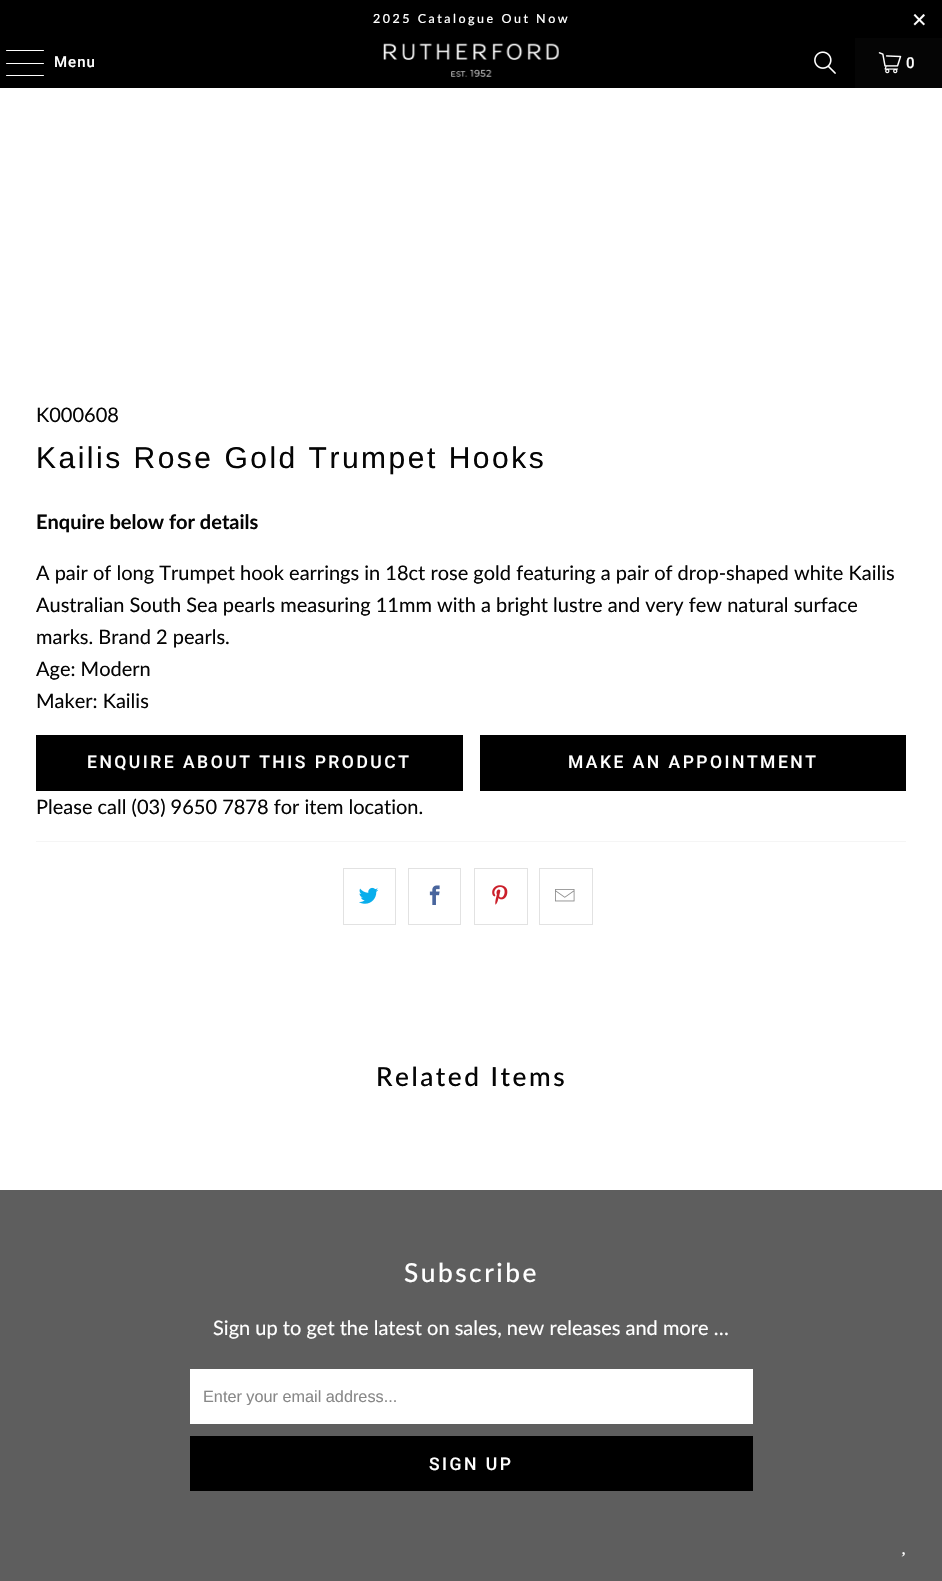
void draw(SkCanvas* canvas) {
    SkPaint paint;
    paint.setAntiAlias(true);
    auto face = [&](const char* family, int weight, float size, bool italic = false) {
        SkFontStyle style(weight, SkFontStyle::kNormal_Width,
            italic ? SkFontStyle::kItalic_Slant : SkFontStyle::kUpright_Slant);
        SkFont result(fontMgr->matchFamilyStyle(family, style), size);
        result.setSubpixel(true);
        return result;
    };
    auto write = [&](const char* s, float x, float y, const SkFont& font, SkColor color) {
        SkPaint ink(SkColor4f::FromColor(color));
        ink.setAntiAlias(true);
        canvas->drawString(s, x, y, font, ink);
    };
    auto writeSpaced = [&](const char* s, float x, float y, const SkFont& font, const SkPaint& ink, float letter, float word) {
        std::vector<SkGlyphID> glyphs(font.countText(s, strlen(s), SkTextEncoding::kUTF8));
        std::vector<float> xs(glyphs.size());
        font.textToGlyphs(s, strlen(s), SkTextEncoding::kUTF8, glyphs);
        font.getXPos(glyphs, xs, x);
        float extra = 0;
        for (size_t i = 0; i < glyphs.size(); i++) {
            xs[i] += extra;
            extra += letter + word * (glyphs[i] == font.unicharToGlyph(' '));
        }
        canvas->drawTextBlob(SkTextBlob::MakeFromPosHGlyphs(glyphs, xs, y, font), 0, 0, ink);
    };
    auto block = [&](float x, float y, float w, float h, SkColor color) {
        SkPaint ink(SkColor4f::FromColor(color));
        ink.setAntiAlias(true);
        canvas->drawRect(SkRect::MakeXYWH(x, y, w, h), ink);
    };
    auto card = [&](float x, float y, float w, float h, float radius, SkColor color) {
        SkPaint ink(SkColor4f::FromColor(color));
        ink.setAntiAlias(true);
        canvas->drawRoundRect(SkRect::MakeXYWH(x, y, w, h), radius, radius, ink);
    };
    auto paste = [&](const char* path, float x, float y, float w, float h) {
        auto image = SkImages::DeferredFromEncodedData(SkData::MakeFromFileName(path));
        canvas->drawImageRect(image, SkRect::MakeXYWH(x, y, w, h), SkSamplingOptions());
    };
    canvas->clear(SK_ColorWHITE);
    block(0, 0, 942, 38, SK_ColorBLACK);
    auto kFont1 = face("Lato", 500, 12.5f);
    paint.setColor(SK_ColorWHITE);
    writeSpaced("2025 Catalogue Out Now", 373, 23, kFont1, paint, 2.5f, 0);
    auto kFont2 = face("Liberation Sans", 400, 25);
    writeSpaced("×", 912, 28, kFont2, paint, 2.5f, 0);
    block(0, 38, 855, 50, SK_ColorBLACK);
    card(6, 50, 38, 1, 0.5f, SK_ColorWHITE);
    card(6, 63, 38, 1, 0.5f, SK_ColorWHITE);
    card(6, 75, 38, 1, 0.5f, SK_ColorWHITE);
    auto kFont3 = face("Roboto", 500, 15);
    writeSpaced("Menu", 54, 67, kFont3, paint, 1, 0);
    paste("pic1.png", 383, 43, 176, 34);
    paste("pic2.png", 814, 51, 22, 23);
    block(855, 38, 87, 50, SkColorSetRGB(5, 5, 5));
    paste("pic3.png", 878, 52, 24, 22);
    writeSpaced("0", 906, 68, kFont3, paint, 1, 0);
    auto kFont4 = face("Lato", 400, 20);
    write("K000608", 36, 422, kFont4, SkColorSetRGB(5, 5, 5));
    auto kFont5 = face("Liberation Sans", 400, 30);
    paint.setColor(SkColorSetRGB(5, 5, 5));
    writeSpaced("Kailis Rose Gold Trumpet Hooks", 36, 468, kFont5, paint, 2.5f, 0);
    auto kFont6 = face("Lato", 700, 20);
    write("Enquire below for details", 36, 529, kFont6, SkColorSetRGB(5, 5, 5));
    write("A pair of long Trumpet hook earrings in 18ct rose gold featuring a pair of drop-shaped white Kailis", 36, 580, kFont4, SkColorSetRGB(5, 5, 5));
    write("Australian South Sea pearls measuring 11mm with a bright lustre and very few natural surface", 36, 612, kFont4, SkColorSetRGB(5, 5, 5));
    write("marks. Brand 2 pearls.", 36, 644, kFont4, SkColorSetRGB(5, 5, 5));
    write("Age: Modern", 36, 676, kFont4, SkColorSetRGB(5, 5, 5));
    write("Maker: Kailis", 36, 708, kFont4, SkColorSetRGB(5, 5, 5));
    block(36, 735, 427, 56, SK_ColorBLACK);
    auto kFont7 = face("Roboto", 500, 17.5f);
    paint.setColor(SK_ColorWHITE);
    writeSpaced("ENQUIRE ABOUT THIS PRODUCT", 87, 768, kFont7, paint, 2.5f, 0);
    block(480, 735, 426, 56, SK_ColorBLACK);
    writeSpaced("MAKE AN APPOINTMENT", 568, 768, kFont7, paint, 2.5f, 0);
    write("Please call (03) 9650 7878 for item location.", 36, 814, kFont4, SkColorSetRGB(5, 5, 5));
    block(36, 841, 870, 1, SkColorSetRGB(245, 245, 245));
    paint.setStyle(SkPaint::kStroke_Style);
    paint.setStrokeWidth(1);
    paint.setColor(SkColorSetRGB(226, 226, 226));
    canvas->drawRect(SkRect::MakeXYWH(343.5f, 868.5f, 52, 56), paint);
    paste("pic4.png", 359, 887, 20, 17);
    canvas->drawRect(SkRect::MakeXYWH(408.5f, 868.5f, 52, 56), paint);
    paste("pic5.png", 429, 885, 11, 20);
    canvas->drawRect(SkRect::MakeXYWH(474.5f, 868.5f, 53, 56), paint);
    paste("pic6.png", 492, 885, 16, 20);
    canvas->drawRect(SkRect::MakeXYWH(539.5f, 868.5f, 53, 56), paint);
    paste("pic7.png", 555, 889, 20, 13);
    auto kFont8 = face("Lato", 500, 26.25f);
    paint.setStyle(SkPaint::kFill_Style);
    paint.setColor(SkColorSetRGB(5, 5, 5));
    writeSpaced("Related Items", 376, 1086, kFont8, paint, 2.5f, 0);
    block(0, 1190, 942, 391, SkColorSetRGB(94, 94, 94));
    paint.setColor(SK_ColorWHITE);
    writeSpaced("Subscribe", 404, 1282, kFont8, paint, 2.5f, 0);
    write("Sign up to get the latest on sales, new releases and more …", 213, 1335, kFont4, SK_ColorWHITE);
    block(190, 1369, 563, 55, SK_ColorWHITE);
    canvas->save();
    canvas->clipRect(SkRect::MakeXYWH(203, 1386, 537, 19));
    auto kFont9 = face("Liberation Sans", 400, 16.25f);
    write("Enter your email address...", 203, 1402, kFont9, SkColorSetRGB(136, 136, 136));
    canvas->restore();
    block(190, 1436, 563, 55, SK_ColorBLACK);
    writeSpaced("SIGN UP", 429, 1470, kFont7, paint, 2.5f, 0);
    paste("pic8.png", 901, 1552, 4, 5);
}
